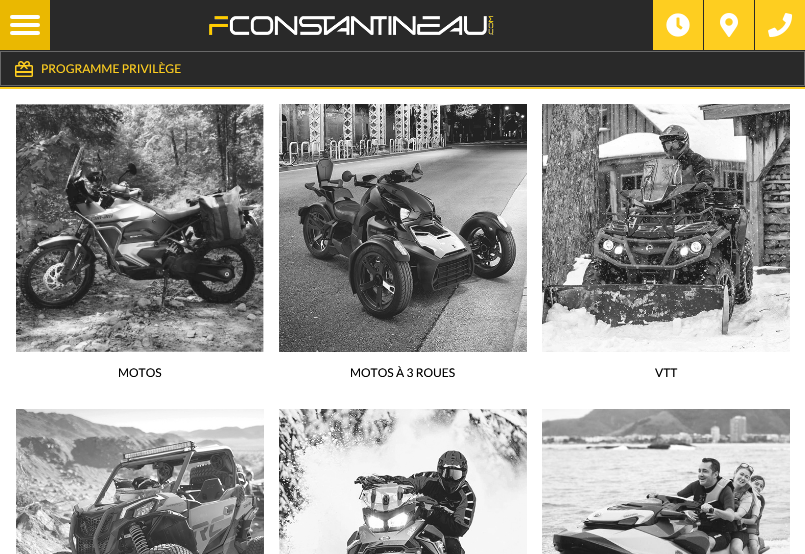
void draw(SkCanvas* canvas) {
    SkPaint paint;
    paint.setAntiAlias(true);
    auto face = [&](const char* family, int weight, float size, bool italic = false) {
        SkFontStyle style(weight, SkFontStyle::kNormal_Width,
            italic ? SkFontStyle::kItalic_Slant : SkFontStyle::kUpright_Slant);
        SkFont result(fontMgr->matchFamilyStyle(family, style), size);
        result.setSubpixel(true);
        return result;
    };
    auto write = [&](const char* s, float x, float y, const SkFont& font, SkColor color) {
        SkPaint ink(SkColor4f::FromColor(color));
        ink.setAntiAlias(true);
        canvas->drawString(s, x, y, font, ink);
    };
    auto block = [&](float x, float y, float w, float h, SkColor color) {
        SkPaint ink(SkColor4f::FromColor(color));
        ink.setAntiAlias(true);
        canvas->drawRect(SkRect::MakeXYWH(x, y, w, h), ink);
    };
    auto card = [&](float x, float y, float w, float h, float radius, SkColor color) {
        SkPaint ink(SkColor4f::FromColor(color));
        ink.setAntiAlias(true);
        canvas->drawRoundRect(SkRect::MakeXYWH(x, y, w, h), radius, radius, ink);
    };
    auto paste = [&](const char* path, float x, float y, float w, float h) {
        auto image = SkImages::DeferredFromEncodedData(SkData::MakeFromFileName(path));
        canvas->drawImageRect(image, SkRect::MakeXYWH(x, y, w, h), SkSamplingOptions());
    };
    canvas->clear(SK_ColorWHITE);
    block(0, 0, 805, 87, SkColorSetRGB(41, 41, 41));
    block(0, 0, 50, 50, SkColorSetRGB(234, 184, 1));
    card(10, 23, 30, 4, 2, SK_ColorWHITE);
    card(10, 15, 30, 4, 2, SK_ColorWHITE);
    card(10, 31, 30, 4, 2, SK_ColorWHITE);
    block(653, 0, 50, 50, SkColorSetRGB(254, 206, 32));
    paste("pic1.png", 666, 13, 24, 24);
    block(704, 0, 50, 50, SkColorSetRGB(254, 206, 32));
    paste("pic2.png", 720, 13, 18, 24);
    block(755, 0, 50, 50, SkColorSetRGB(254, 206, 32));
    paste("pic3.png", 768, 13, 25, 24);
    block(0, 87, 805, 2, SkColorSetRGB(254, 206, 32));
    paste("pic4.png", 209, 16, 285, 19);
    paint.setStyle(SkPaint::kStroke_Style);
    paint.setStrokeWidth(1);
    paint.setColor(SkColorSetRGB(105, 105, 105));
    canvas->drawRect(SkRect::MakeXYWH(0.5f, 51.5f, 804, 34), paint);
    paste("pic5.png", 15, 61, 18, 16);
    auto kFont1 = face("Lato", 400, 12);
    write("PROGRAMME PRIVILÈGE", 41, 73, kFont1, SkColorSetRGB(254, 206, 32));
    paste("pic6.png", 16, 104, 248, 248);
    write("MOTOS", 118, 377, kFont1, SK_ColorBLACK);
    paste("pic7.png", 279, 104, 248, 248);
    write("MOTOS À 3 ROUES", 350, 377, kFont1, SK_ColorBLACK);
    paste("pic8.png", 542, 104, 248, 248);
    write("VTT", 655, 377, kFont1, SK_ColorBLACK);
    paste("pic9.png", 16, 409, 248, 145);
    paste("pic10.png", 279, 409, 248, 145);
    paste("pic11.png", 542, 409, 248, 145);
}
